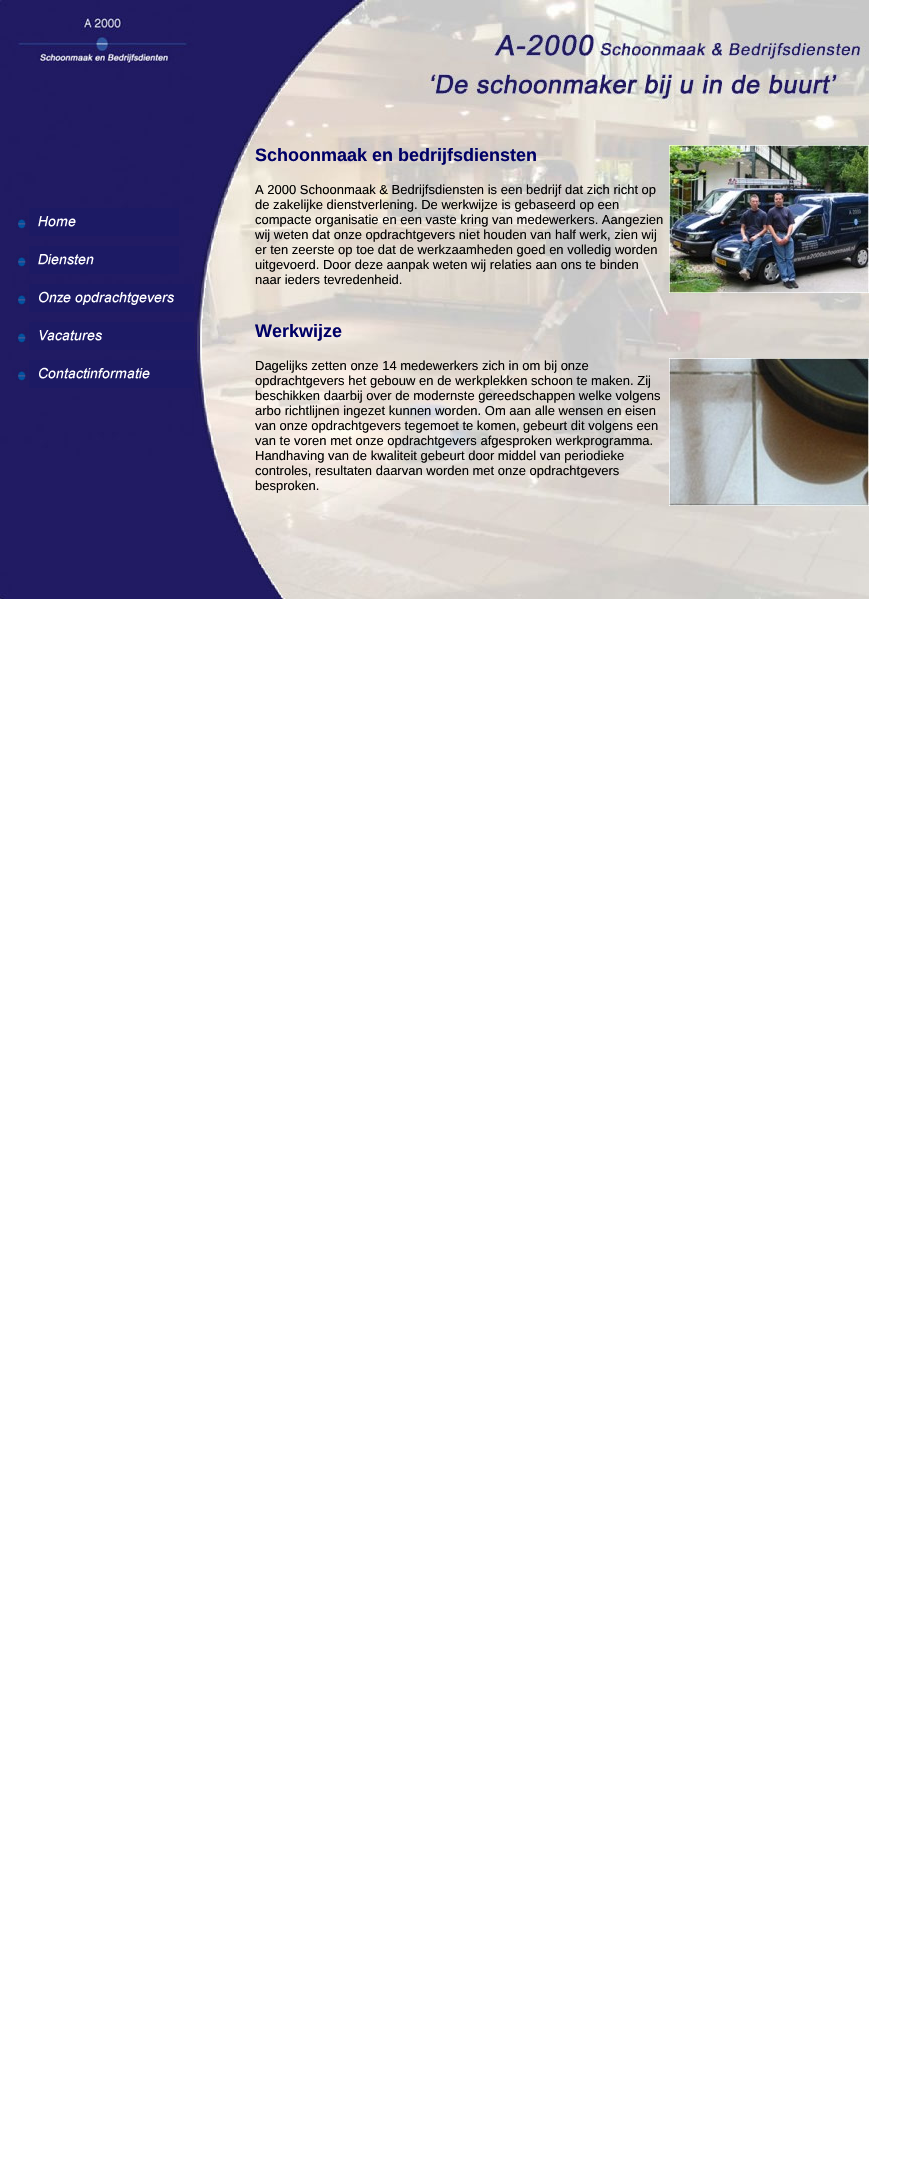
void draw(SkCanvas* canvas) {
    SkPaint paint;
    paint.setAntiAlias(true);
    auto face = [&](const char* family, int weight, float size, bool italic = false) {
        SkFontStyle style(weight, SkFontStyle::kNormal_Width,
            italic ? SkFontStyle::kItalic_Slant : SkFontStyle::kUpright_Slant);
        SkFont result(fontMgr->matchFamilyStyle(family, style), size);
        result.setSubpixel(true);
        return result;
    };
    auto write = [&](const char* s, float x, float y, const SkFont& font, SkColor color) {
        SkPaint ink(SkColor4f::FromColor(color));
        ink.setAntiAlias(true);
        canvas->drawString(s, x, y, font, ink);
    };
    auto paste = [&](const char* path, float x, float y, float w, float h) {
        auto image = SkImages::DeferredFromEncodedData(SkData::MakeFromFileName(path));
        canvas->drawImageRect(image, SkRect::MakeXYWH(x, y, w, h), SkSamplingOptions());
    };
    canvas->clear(SK_ColorWHITE);
    paste("pic1.png", 0, 0, 194, 599);
    paste("pic2.png", 16, 216, 12, 13);
    paste("pic3.png", 29, 208, 150, 28);
    paste("pic2.png", 16, 254, 12, 13);
    paste("pic4.png", 29, 246, 150, 28);
    paste("pic2.png", 16, 292, 12, 13);
    paste("pic5.png", 29, 284, 165, 28);
    paste("pic2.png", 16, 330, 12, 13);
    paste("pic6.png", 29, 322, 165, 28);
    paste("pic2.png", 16, 368, 12, 13);
    paste("pic7.png", 29, 360, 165, 28);
    paste("pic8.png", 194, 0, 675, 599);
    auto kFont1 = face("Liberation Sans", 700, 18);
    write("Schoonmaak en bedrijfsdiensten", 255, 161, kFont1, SkColorSetRGB(0, 0, 102));
    paste("pic9.png", 669, 145, 200, 148);
    auto kFont2 = face("Liberation Sans", 400, 13);
    write("A 2000 Schoonmaak & Bedrijfsdiensten is een bedrijf dat zich richt op", 255, 194, kFont2, SK_ColorBLACK);
    write("de zakelijke dienstverlening. De werkwijze is gebaseerd op een", 255, 209, kFont2, SK_ColorBLACK);
    write("compacte organisatie en een vaste kring van medewerkers. Aangezien", 255, 224, kFont2, SK_ColorBLACK);
    write("wij weten dat onze opdrachtgevers niet houden van half werk, zien wij", 255, 239, kFont2, SK_ColorBLACK);
    write("er ten zeerste op toe dat de werkzaamheden goed en volledig worden", 255, 254, kFont2, SK_ColorBLACK);
    write("uitgevoerd. Door deze aanpak weten wij relaties aan ons te binden", 255, 269, kFont2, SK_ColorBLACK);
    write("naar ieders tevredenheid.", 255, 284, kFont2, SK_ColorBLACK);
    write("Werkwijze", 255, 337, kFont1, SkColorSetRGB(0, 0, 102));
    write("Dagelijks zetten onze 14 medewerkers zich in om bij onze", 255, 370, kFont2, SK_ColorBLACK);
    paste("pic10.png", 669, 358, 200, 148);
    write("opdrachtgevers het gebouw en de werkplekken schoon te maken. Zij", 255, 385, kFont2, SK_ColorBLACK);
    write("beschikken daarbij over de modernste gereedschappen welke volgens", 255, 400, kFont2, SK_ColorBLACK);
    write("arbo richtlijnen ingezet kunnen worden. Om aan alle wensen en eisen", 255, 415, kFont2, SK_ColorBLACK);
    write("van onze opdrachtgevers tegemoet te komen, gebeurt dit volgens een", 255, 430, kFont2, SK_ColorBLACK);
    write("van te voren met onze opdrachtgevers afgesproken werkprogramma.", 255, 445, kFont2, SK_ColorBLACK);
    write("Handhaving van de kwaliteit gebeurt door middel van periodieke", 255, 460, kFont2, SK_ColorBLACK);
    write("controles, resultaten daarvan worden met onze opdrachtgevers", 255, 475, kFont2, SK_ColorBLACK);
    write("besproken.", 255, 490, kFont2, SK_ColorBLACK);
}
